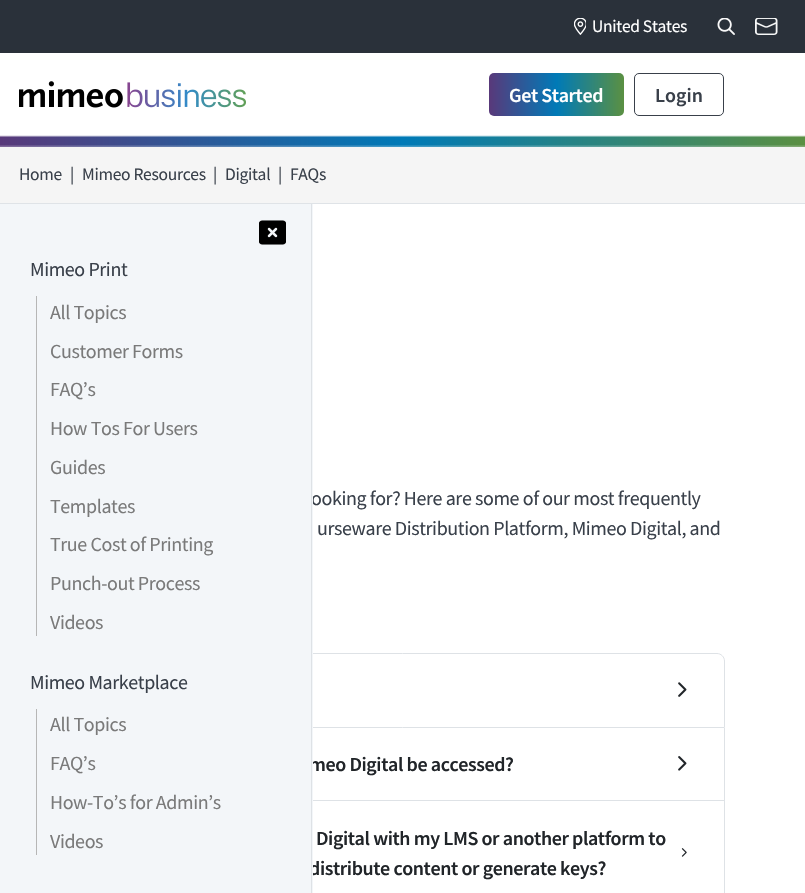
void draw(SkCanvas* canvas) {
    SkPaint paint;
    paint.setAntiAlias(true);
    auto face = [&](const char* family, int weight, float size, bool italic = false) {
        SkFontStyle style(weight, SkFontStyle::kNormal_Width,
            italic ? SkFontStyle::kItalic_Slant : SkFontStyle::kUpright_Slant);
        SkFont result(fontMgr->matchFamilyStyle(family, style), size);
        result.setSubpixel(true);
        return result;
    };
    auto write = [&](const char* s, float x, float y, const SkFont& font, SkColor color) {
        SkPaint ink(SkColor4f::FromColor(color));
        ink.setAntiAlias(true);
        canvas->drawString(s, x, y, font, ink);
    };
    auto writeSpaced = [&](const char* s, float x, float y, const SkFont& font, const SkPaint& ink, float letter, float word) {
        std::vector<SkGlyphID> glyphs(font.countText(s, strlen(s), SkTextEncoding::kUTF8));
        std::vector<float> xs(glyphs.size());
        font.textToGlyphs(s, strlen(s), SkTextEncoding::kUTF8, glyphs);
        font.getXPos(glyphs, xs, x);
        float extra = 0;
        for (size_t i = 0; i < glyphs.size(); i++) {
            xs[i] += extra;
            extra += letter + word * (glyphs[i] == font.unicharToGlyph(' '));
        }
        canvas->drawTextBlob(SkTextBlob::MakeFromPosHGlyphs(glyphs, xs, y, font), 0, 0, ink);
    };
    auto block = [&](float x, float y, float w, float h, SkColor color) {
        SkPaint ink(SkColor4f::FromColor(color));
        ink.setAntiAlias(true);
        canvas->drawRect(SkRect::MakeXYWH(x, y, w, h), ink);
    };
    auto paste = [&](const char* path, float x, float y, float w, float h) {
        auto image = SkImages::DeferredFromEncodedData(SkData::MakeFromFileName(path));
        canvas->drawImageRect(image, SkRect::MakeXYWH(x, y, w, h), SkSamplingOptions());
    };
    canvas->clear(SK_ColorWHITE);
    block(0, 0, 805, 53, SkColorSetRGB(42, 49, 58));
    paste("pic1.png", 574, 18, 12, 17);
    auto kFont1 = face("Source Sans Pro", 400, 17.5f);
    paint.setColor(SK_ColorWHITE);
    writeSpaced("United States", 592, 32, kFont1, paint, -0.3f, 0);
    paste("pic2.png", 717, 18, 18, 17);
    paste("pic3.png", 755, 18, 23, 17);
    block(0, 146, 805, 57, SkColorSetRGB(245, 245, 245));
    paste("pic4.png", 0, 135, 805, 12);
    paste("pic5.png", 19, 81, 227, 27);
    {
        const SkColor colors[] = {SkColorSetRGB(89, 57, 122), SkColorSetRGB(0, 122, 183), SkColorSetRGB(91, 144, 66)};
        const float stops[] = {0, 0.5f, 1};
        const SkPoint ends[] = {{489, 94}, {624, 94}};
        paint.setShader(SkGradientShader::MakeLinear(ends, colors, stops, 3, SkTileMode::kClamp));
        paint.setAlpha(255);
    }
    canvas->drawRoundRect(SkRect::MakeXYWH(489, 73, 135, 43), 5, 5, paint);
    auto kFont2 = face("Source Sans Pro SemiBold", 600, 20);
    paint.setShader(nullptr);
    paint.setColor(SK_ColorWHITE);
    writeSpaced("Get Started", 509, 102, kFont2, paint, -0.4f, 0);
    paint.setStyle(SkPaint::kStroke_Style);
    paint.setStrokeWidth(1);
    paint.setColor(SkColorSetRGB(57, 64, 74));
    canvas->drawRoundRect(SkRect::MakeXYWH(634.5f, 73.5f, 89, 42), 4.5f, 4.5f, paint);
    write("Login", 655, 102, kFont2, SkColorSetRGB(57, 64, 74));
    block(0, 203, 805, 1, SkColorSetRGB(223, 227, 231));
    paint.setStyle(SkPaint::kFill_Style);
    writeSpaced("Home", 19, 180, kFont1, paint, -0.3f, 0);
    writeSpaced("|", 70, 180, kFont1, paint, -0.3f, 0);
    writeSpaced("Mimeo Resources", 82, 180, kFont1, paint, -0.3f, 0);
    writeSpaced("|", 213, 180, kFont1, paint, -0.3f, 0);
    writeSpaced("Digital", 225, 180, kFont1, paint, -0.3f, 0);
    writeSpaced("|", 278, 180, kFont1, paint, -0.3f, 0);
    writeSpaced("FAQs", 290, 180, kFont1, paint, -0.3f, 0);
    auto kFont3 = face("Source Sans Pro", 400, 20);
    writeSpaced("ooking for? Here are some of our most frequently", 311, 505, kFont3, paint, -0.4f, 0);
    paint.setStyle(SkPaint::kStroke_Style);
    paint.setColor(SkColorSetRGB(222, 226, 230));
    canvas->drawPath(SkPathBuilder().moveTo(88, 653.5f).lineTo(717, 653.5f).cubicTo(721, 653.5f, 724.5f, 657, 724.5f, 661).lineTo(724.5f, 727.5f).lineTo(80.5f, 727.5f).lineTo(80.5f, 661).cubicTo(80.5f, 657, 84, 653.5f, 88, 653.5f).close().detach(), paint);
    paint.setStyle(SkPaint::kFill_Style);
    paint.setColor(SkColorSetRGB(33, 37, 41));
    writeSpaced("meo Digital be accessed?", 309, 771, kFont2, paint, -0.4f, 0);
    writeSpaced("distribute content or generate keys?", 309, 875, kFont2, paint, -0.4f, 0);
    block(0, 204, 313, 689, SkColorSetRGB(243, 246, 249));
    block(311, 204, 1, 689, SkColorSetRGB(222, 226, 230));
    paste("pic6.png", 259, 220, 27, 25);
    paint.setColor(SkColorSetRGB(57, 64, 74));
    writeSpaced("Mimeo Print", 30, 276, kFont3, paint, -0.4f, 0);
    block(36, 296, 1, 340, SkColorSetRGB(182, 182, 182));
    paint.setColor(SkColorSetRGB(122, 122, 122));
    writeSpaced("All Topics", 50, 319, kFont3, paint, -0.4f, 0);
    writeSpaced("Customer Forms", 50, 358, kFont3, paint, -0.4f, 0);
    writeSpaced("FAQ’s", 50, 396, kFont3, paint, -0.4f, 0);
    writeSpaced("How Tos For Users", 50, 435, kFont3, paint, -0.4f, 0);
    writeSpaced("Guides", 50, 474, kFont3, paint, -0.4f, 0);
    writeSpaced("Templates", 50, 513, kFont3, paint, -0.4f, 0);
    writeSpaced("True Cost of Printing", 50, 551, kFont3, paint, -0.4f, 0);
    writeSpaced("Punch-out Process", 50, 590, kFont3, paint, -0.4f, 0);
    writeSpaced("Videos", 50, 629, kFont3, paint, -0.4f, 0);
    paint.setColor(SkColorSetRGB(57, 64, 74));
    writeSpaced("Mimeo Marketplace", 30, 689, kFont3, paint, -0.4f, 0);
    block(36, 709, 1, 146, SkColorSetRGB(182, 182, 182));
    paint.setColor(SkColorSetRGB(122, 122, 122));
    writeSpaced("All Topics", 50, 731, kFont3, paint, -0.4f, 0);
    writeSpaced("FAQ’s", 50, 770, kFont3, paint, -0.4f, 0);
    writeSpaced("How-To’s for Admin’s", 50, 809, kFont3, paint, -0.4f, 0);
    writeSpaced("Videos", 50, 848, kFont3, paint, -0.4f, 0);
    paint.setColor(SkColorSetRGB(57, 64, 74));
    writeSpaced("urseware Distribution Platform, Mimeo Digital, and", 317, 535, kFont3, paint, -0.4f, 0);
    paste("pic7.png", 678, 682, 9, 15);
    block(724, 728, 1, 165, SkColorSetRGB(222, 226, 230));
    block(313, 800, 412, 1, SkColorSetRGB(222, 226, 230));
    paste("pic8.png", 678, 756, 9, 15);
    paint.setColor(SkColorSetRGB(33, 37, 41));
    writeSpaced("Digital with my LMS or another platform to", 316, 845, kFont2, paint, -0.4f, 0);
    paste("pic9.png", 681, 848, 6, 9);
}
